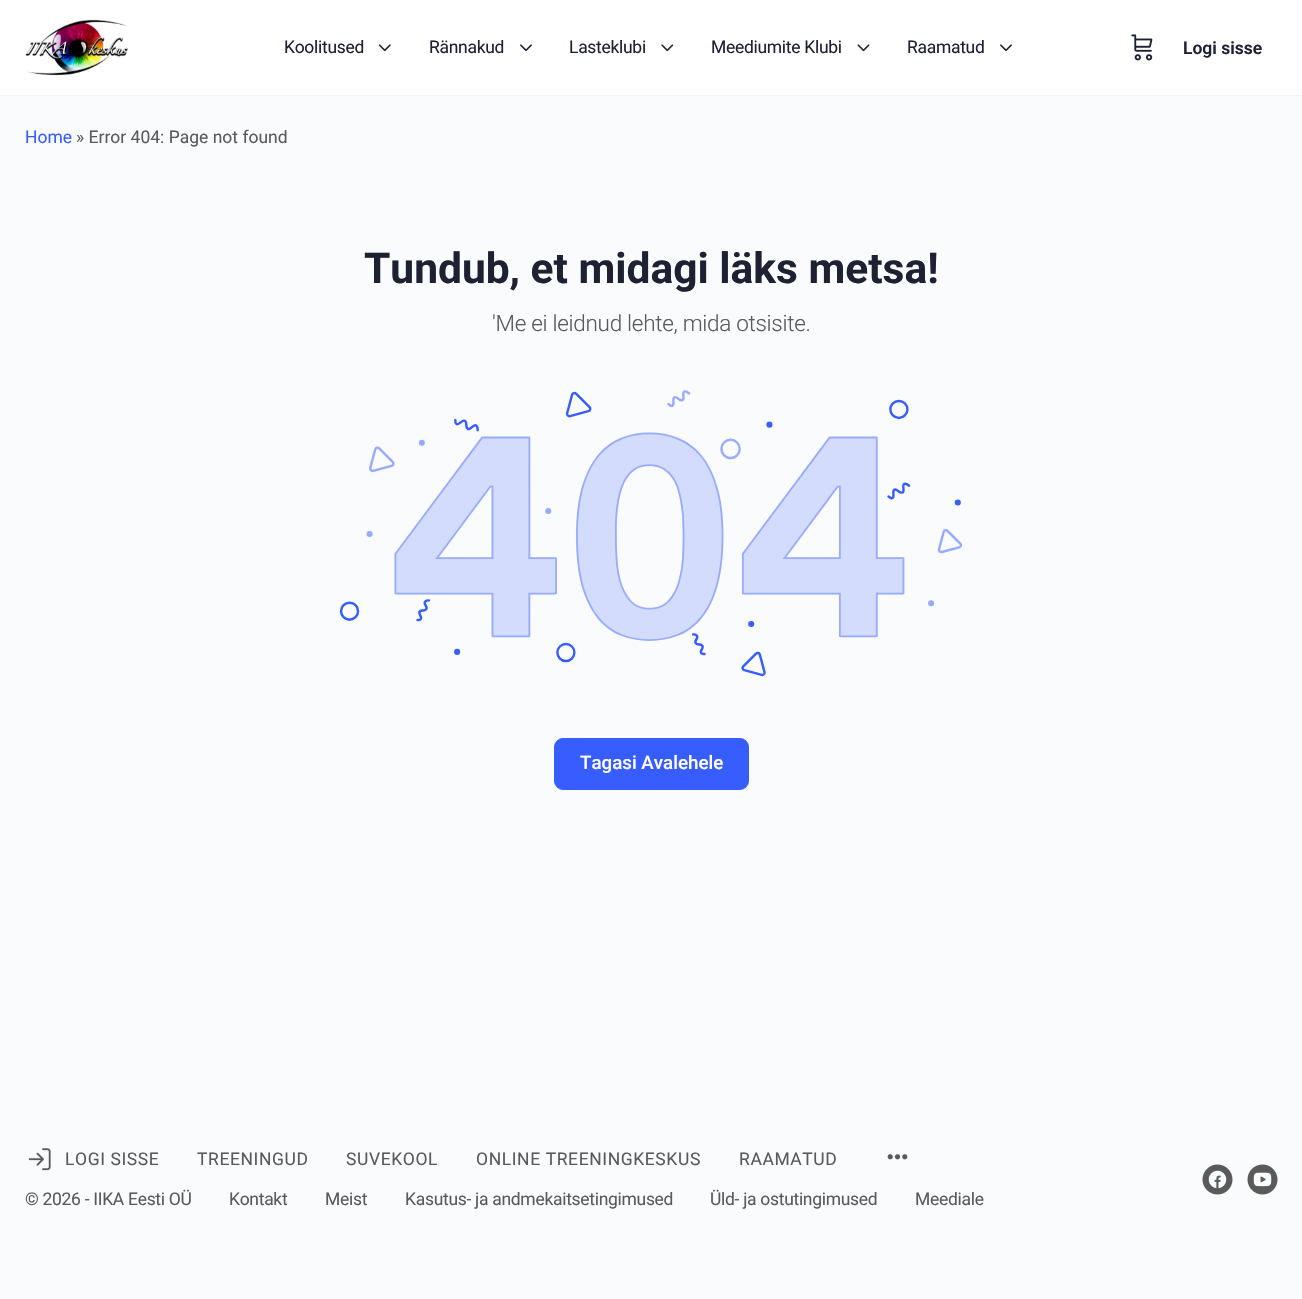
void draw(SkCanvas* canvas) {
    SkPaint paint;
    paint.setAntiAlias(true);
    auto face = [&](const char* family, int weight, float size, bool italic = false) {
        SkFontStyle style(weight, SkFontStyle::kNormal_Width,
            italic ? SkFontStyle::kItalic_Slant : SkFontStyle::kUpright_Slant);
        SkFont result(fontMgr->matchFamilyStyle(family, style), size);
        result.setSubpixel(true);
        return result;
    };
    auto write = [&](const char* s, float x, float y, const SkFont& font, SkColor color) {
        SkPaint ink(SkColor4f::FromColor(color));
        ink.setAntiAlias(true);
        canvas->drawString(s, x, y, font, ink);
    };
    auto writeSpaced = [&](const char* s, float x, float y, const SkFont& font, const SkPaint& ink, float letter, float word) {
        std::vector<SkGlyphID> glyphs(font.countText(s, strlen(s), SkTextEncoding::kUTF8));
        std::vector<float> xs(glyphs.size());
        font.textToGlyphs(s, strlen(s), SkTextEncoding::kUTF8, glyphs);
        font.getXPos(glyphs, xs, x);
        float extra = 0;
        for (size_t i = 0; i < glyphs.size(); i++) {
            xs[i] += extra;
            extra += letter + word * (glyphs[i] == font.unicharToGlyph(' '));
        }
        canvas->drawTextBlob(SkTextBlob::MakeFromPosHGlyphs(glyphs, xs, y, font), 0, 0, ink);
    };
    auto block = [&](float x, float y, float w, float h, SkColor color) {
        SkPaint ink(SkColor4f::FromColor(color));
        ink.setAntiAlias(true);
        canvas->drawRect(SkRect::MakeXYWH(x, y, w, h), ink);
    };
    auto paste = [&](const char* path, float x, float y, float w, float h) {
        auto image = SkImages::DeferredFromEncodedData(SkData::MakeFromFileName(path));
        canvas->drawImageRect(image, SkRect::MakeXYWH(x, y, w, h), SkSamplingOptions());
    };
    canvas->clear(SkColorSetRGB(250, 251, 253));
    paint.setColor(SkColorSetRGB(242, 243, 246));
    canvas->drawPath(SkPathBuilder().moveTo(0, 95).lineTo(0, 96).lineTo(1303, 96).lineTo(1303, 1).lineTo(1302, 1).lineTo(1302, 95).close().detach(), paint);
    block(0, 0, 1302, 95, SK_ColorWHITE);
    paste("pic1.png", 25, 19, 103, 57);
    auto kFont1 = face("Roboto", 400, 17.5f);
    paint.setColor(SkColorSetRGB(30, 33, 50));
    writeSpaced("Koolitused", 284, 53, kFont1, paint, -0.3f, 0);
    paste("pic2.png", 378, 44, 13, 8);
    writeSpaced("Rännakud", 429, 53, kFont1, paint, -0.3f, 0);
    paste("pic3.png", 520, 44, 12, 8);
    writeSpaced("Lasteklubi", 569, 53, kFont1, paint, -0.3f, 0);
    paste("pic4.png", 661, 44, 13, 8);
    writeSpaced("Meediumite Klubi", 711, 53, kFont1, paint, -0.3f, 0);
    paste("pic5.png", 857, 44, 13, 8);
    writeSpaced("Raamatud", 907, 53, kFont1, paint, -0.3f, 0);
    paste("pic3.png", 1000, 44, 12, 8);
    paste("pic6.png", 1131, 34, 22, 27);
    auto kFont2 = face("Roboto", 600, 17.5f);
    write("Logi sisse", 1183, 54, kFont2, SkColorSetRGB(30, 33, 50));
    write("Home", 25, 143, kFont1, SkColorSetRGB(56, 93, 255));
    write("» Error 404: Page not found", 76, 143, kFont1, SkColorSetRGB(90, 90, 90));
    auto kFont3 = face("Roboto", 700, 42.5f);
    write("Tundub, et midagi läks metsa!", 364, 283, kFont3, SkColorSetRGB(30, 33, 50));
    auto kFont4 = face("Roboto", 300, 22.5f);
    paint.setColor(SkColorSetRGB(90, 90, 90));
    writeSpaced("'Me ei leidnud lehte, mida otsisite.", 492, 331, kFont4, paint, -0.3f, 0);
    paste("pic7.png", 339, 390, 623, 287);
    paint.setColor(SkColorSetRGB(56, 93, 255));
    canvas->drawRoundRect(SkRect::MakeXYWH(554.5f, 738.5f, 194, 51), 8.5f, 8.5f, paint);
    paint.setStyle(SkPaint::kStroke_Style);
    paint.setStrokeWidth(1);
    canvas->drawRoundRect(SkRect::MakeXYWH(554.5f, 738.5f, 194, 51), 8.5f, 8.5f, paint);
    auto kFont5 = face("Roboto", 500, 18.75f);
    write("Tagasi Avalehele", 580, 769, kFont5, SK_ColorWHITE);
    paste("pic8.png", 28, 1148, 23, 23);
    paint.setStyle(SkPaint::kFill_Style);
    paint.setColor(SkColorSetRGB(90, 90, 90));
    writeSpaced("LOGI SISSE", 65, 1165, kFont1, paint, 0.6f, 0);
    writeSpaced("TREENINGUD", 197, 1165, kFont1, paint, 0.6f, 0);
    writeSpaced("SUVEKOOL", 346, 1165, kFont1, paint, 0.6f, 0);
    writeSpaced("ONLINE TREENINGKESKUS", 476, 1165, kFont1, paint, 0.6f, 0);
    writeSpaced("RAAMATUD", 739, 1165, kFont1, paint, 0.6f, 0);
    paste("pic9.png", 887, 1154, 21, 6);
    writeSpaced("© 2026 - IIKA Eesti OÜ", 25, 1205, kFont1, paint, -0.3f, 0);
    writeSpaced("Kontakt", 229, 1205, kFont1, paint, -0.3f, 0);
    writeSpaced("Meist", 325, 1205, kFont1, paint, -0.3f, 0);
    writeSpaced("Kasutus- ja andmekaitsetingimused", 405, 1205, kFont1, paint, -0.3f, 0);
    writeSpaced("Üld- ja ostutingimused", 710, 1205, kFont1, paint, -0.3f, 0);
    writeSpaced("Meediale", 915, 1205, kFont1, paint, -0.3f, 0);
    paste("pic10.png", 1202, 1164, 31, 31);
    paste("pic11.png", 1247, 1164, 31, 31);
}
